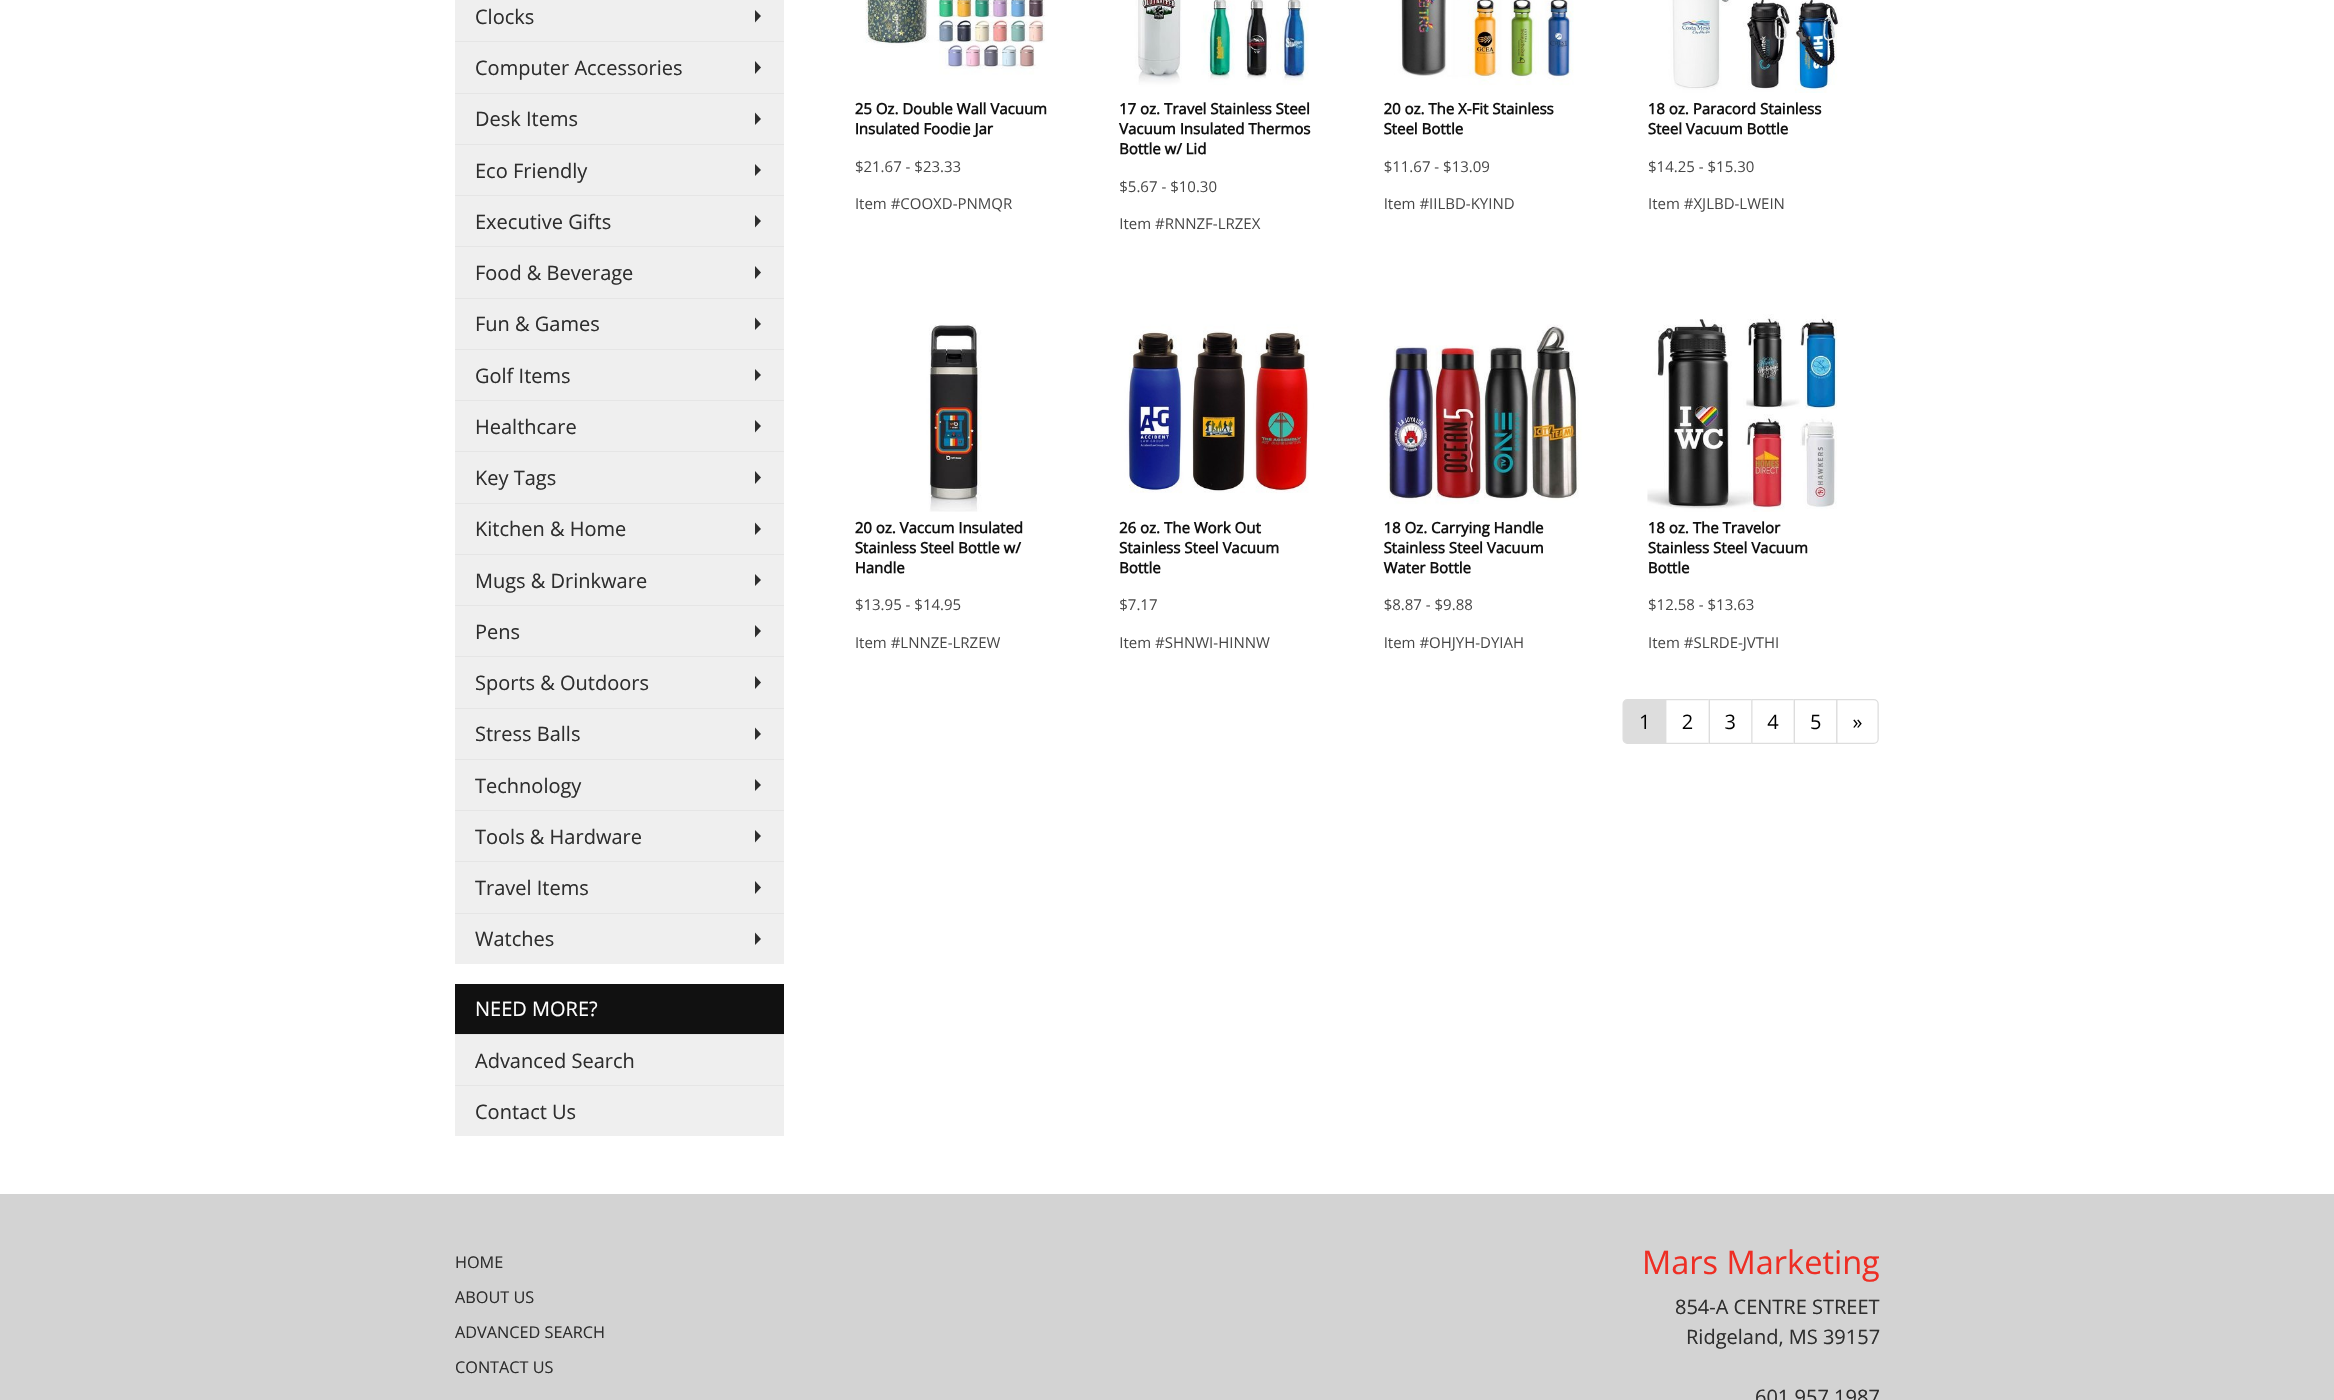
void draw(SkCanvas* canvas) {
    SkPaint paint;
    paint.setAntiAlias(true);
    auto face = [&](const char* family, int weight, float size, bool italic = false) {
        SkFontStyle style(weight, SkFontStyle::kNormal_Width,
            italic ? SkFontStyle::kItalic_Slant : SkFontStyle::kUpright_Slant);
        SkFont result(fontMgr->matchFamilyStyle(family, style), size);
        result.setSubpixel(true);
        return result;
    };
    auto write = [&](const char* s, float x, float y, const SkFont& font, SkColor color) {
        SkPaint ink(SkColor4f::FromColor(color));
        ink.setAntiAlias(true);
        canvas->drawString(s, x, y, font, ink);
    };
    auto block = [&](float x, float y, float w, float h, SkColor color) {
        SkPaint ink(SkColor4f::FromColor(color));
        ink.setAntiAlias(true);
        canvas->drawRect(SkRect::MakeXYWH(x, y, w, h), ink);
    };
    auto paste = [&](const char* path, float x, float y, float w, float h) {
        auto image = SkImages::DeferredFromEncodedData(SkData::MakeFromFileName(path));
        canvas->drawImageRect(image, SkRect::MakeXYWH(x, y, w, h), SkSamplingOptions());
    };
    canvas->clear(SK_ColorWHITE);
    block(455, 0, 329, 41, SkColorSetRGB(239, 239, 239));
    auto kFont1 = face("Open Sans", 400, 20);
    write("Clocks", 475, 24, kFont1, SkColorSetRGB(46, 46, 46));
    paint.setColor(SkColorSetRGB(46, 46, 46));
    canvas->drawPath(SkPathBuilder().moveTo(755, 22.5f).lineTo(755, 10).lineTo(761, 16).close().detach(), paint);
    block(455, 42, 329, 51, SkColorSetRGB(239, 239, 239));
    block(455, 41, 329, 1, SkColorSetRGB(229, 229, 229));
    write("Computer Accessories", 475, 75, kFont1, SkColorSetRGB(46, 46, 46));
    canvas->drawPath(SkPathBuilder().moveTo(755, 74).lineTo(755, 61).lineTo(761, 67.5f).close().detach(), paint);
    block(455, 94, 329, 50, SkColorSetRGB(239, 239, 239));
    block(455, 93, 329, 1, SkColorSetRGB(229, 229, 229));
    write("Desk Items", 475, 126, kFont1, SkColorSetRGB(46, 46, 46));
    canvas->drawPath(SkPathBuilder().moveTo(755, 125).lineTo(755, 112.5f).lineTo(761, 119).close().detach(), paint);
    block(455, 145, 329, 50, SkColorSetRGB(239, 239, 239));
    block(455, 144, 329, 1, SkColorSetRGB(229, 229, 229));
    write("Eco Friendly", 475, 178, kFont1, SkColorSetRGB(46, 46, 46));
    canvas->drawPath(SkPathBuilder().moveTo(755, 176).lineTo(755, 164).lineTo(761, 170).close().detach(), paint);
    block(455, 196, 329, 50, SkColorSetRGB(239, 239, 239));
    block(455, 195, 329, 1, SkColorSetRGB(229, 229, 229));
    write("Executive Gifts", 475, 229, kFont1, SkColorSetRGB(46, 46, 46));
    canvas->drawPath(SkPathBuilder().moveTo(755, 227.5f).lineTo(755, 215).lineTo(761, 221).close().detach(), paint);
    block(455, 247, 329, 51, SkColorSetRGB(239, 239, 239));
    block(455, 246, 329, 1, SkColorSetRGB(229, 229, 229));
    write("Food & Beverage", 475, 280, kFont1, SkColorSetRGB(46, 46, 46));
    canvas->drawPath(SkPathBuilder().moveTo(755, 279).lineTo(755, 266).lineTo(761, 272.5f).close().detach(), paint);
    block(455, 299, 329, 50, SkColorSetRGB(239, 239, 239));
    block(455, 298, 329, 1, SkColorSetRGB(229, 229, 229));
    write("Fun & Games", 475, 331, kFont1, SkColorSetRGB(46, 46, 46));
    canvas->drawPath(SkPathBuilder().moveTo(755, 330).lineTo(755, 317.5f).lineTo(761, 324).close().detach(), paint);
    block(455, 350, 329, 50, SkColorSetRGB(239, 239, 239));
    block(455, 349, 329, 1, SkColorSetRGB(229, 229, 229));
    write("Golf Items", 475, 383, kFont1, SkColorSetRGB(46, 46, 46));
    canvas->drawPath(SkPathBuilder().moveTo(755, 381).lineTo(755, 369).lineTo(761, 375).close().detach(), paint);
    block(455, 401, 329, 50, SkColorSetRGB(239, 239, 239));
    block(455, 400, 329, 1, SkColorSetRGB(229, 229, 229));
    write("Healthcare", 475, 434, kFont1, SkColorSetRGB(46, 46, 46));
    canvas->drawPath(SkPathBuilder().moveTo(755, 432.5f).lineTo(755, 420).lineTo(761, 426).close().detach(), paint);
    block(455, 452, 329, 51, SkColorSetRGB(239, 239, 239));
    block(455, 451, 329, 1, SkColorSetRGB(229, 229, 229));
    write("Key Tags", 475, 485, kFont1, SkColorSetRGB(46, 46, 46));
    canvas->drawPath(SkPathBuilder().moveTo(755, 484).lineTo(755, 471).lineTo(761, 477.5f).close().detach(), paint);
    block(455, 504, 329, 50, SkColorSetRGB(239, 239, 239));
    block(455, 503, 329, 1, SkColorSetRGB(229, 229, 229));
    write("Kitchen & Home", 475, 536, kFont1, SkColorSetRGB(46, 46, 46));
    canvas->drawPath(SkPathBuilder().moveTo(755, 535).lineTo(755, 522.5f).lineTo(761, 529).close().detach(), paint);
    block(455, 555, 329, 50, SkColorSetRGB(239, 239, 239));
    block(455, 554, 329, 1, SkColorSetRGB(229, 229, 229));
    write("Mugs & Drinkware", 475, 588, kFont1, SkColorSetRGB(46, 46, 46));
    canvas->drawPath(SkPathBuilder().moveTo(755, 586).lineTo(755, 574).lineTo(761, 580).close().detach(), paint);
    block(455, 606, 329, 50, SkColorSetRGB(239, 239, 239));
    block(455, 605, 329, 1, SkColorSetRGB(229, 229, 229));
    write("Pens", 475, 639, kFont1, SkColorSetRGB(46, 46, 46));
    canvas->drawPath(SkPathBuilder().moveTo(755, 637.5f).lineTo(755, 625).lineTo(761, 631).close().detach(), paint);
    block(455, 657, 329, 51, SkColorSetRGB(239, 239, 239));
    block(455, 656, 329, 1, SkColorSetRGB(229, 229, 229));
    write("Sports & Outdoors", 475, 690, kFont1, SkColorSetRGB(46, 46, 46));
    canvas->drawPath(SkPathBuilder().moveTo(755, 689).lineTo(755, 676).lineTo(761, 682.5f).close().detach(), paint);
    block(455, 709, 329, 50, SkColorSetRGB(239, 239, 239));
    block(455, 708, 329, 1, SkColorSetRGB(229, 229, 229));
    write("Stress Balls", 475, 741, kFont1, SkColorSetRGB(46, 46, 46));
    canvas->drawPath(SkPathBuilder().moveTo(755, 740).lineTo(755, 727.5f).lineTo(761, 734).close().detach(), paint);
    block(455, 760, 329, 50, SkColorSetRGB(239, 239, 239));
    block(455, 759, 329, 1, SkColorSetRGB(229, 229, 229));
    write("Technology", 475, 793, kFont1, SkColorSetRGB(46, 46, 46));
    canvas->drawPath(SkPathBuilder().moveTo(755, 791).lineTo(755, 779).lineTo(761, 785).close().detach(), paint);
    block(455, 811, 329, 50, SkColorSetRGB(239, 239, 239));
    block(455, 810, 329, 1, SkColorSetRGB(229, 229, 229));
    write("Tools & Hardware", 475, 844, kFont1, SkColorSetRGB(46, 46, 46));
    canvas->drawPath(SkPathBuilder().moveTo(755, 842.5f).lineTo(755, 830).lineTo(761, 836).close().detach(), paint);
    block(455, 862, 329, 51, SkColorSetRGB(239, 239, 239));
    block(455, 861, 329, 1, SkColorSetRGB(229, 229, 229));
    write("Travel Items", 475, 895, kFont1, SkColorSetRGB(46, 46, 46));
    canvas->drawPath(SkPathBuilder().moveTo(755, 894).lineTo(755, 881).lineTo(761, 887.5f).close().detach(), paint);
    block(455, 914, 329, 50, SkColorSetRGB(239, 239, 239));
    block(455, 913, 329, 1, SkColorSetRGB(229, 229, 229));
    write("Watches", 475, 946, kFont1, SkColorSetRGB(46, 46, 46));
    canvas->drawPath(SkPathBuilder().moveTo(755, 945).lineTo(755, 932.5f).lineTo(761, 939).close().detach(), paint);
    block(455, 984, 329, 50, SkColorSetRGB(17, 17, 17));
    write("NEED MORE?", 475, 1016, kFont1, SK_ColorWHITE);
    block(455, 1035, 329, 50, SkColorSetRGB(239, 239, 239));
    block(455, 1034, 329, 1, SkColorSetRGB(229, 229, 229));
    write("Advanced Search", 475, 1068, kFont1, SkColorSetRGB(46, 46, 46));
    block(455, 1086, 329, 50, SkColorSetRGB(239, 239, 239));
    block(455, 1085, 329, 1, SkColorSetRGB(229, 229, 229));
    write("Contact Us", 475, 1119, kFont1, SkColorSetRGB(46, 46, 46));
    paste("pic1.png", 855, 0, 1024, 744);
    block(0, 1194, 2334, 206, SkColorSetRGB(211, 211, 211));
    auto kFont2 = face("Open Sans", 400, 16.25f);
    write("HOME", 455, 1268, kFont2, SkColorSetRGB(46, 46, 46));
    write("ABOUT US", 455, 1303, kFont2, SkColorSetRGB(46, 46, 46));
    write("ADVANCED SEARCH", 455, 1338, kFont2, SkColorSetRGB(46, 46, 46));
    write("CONTACT US", 455, 1373, kFont2, SkColorSetRGB(46, 46, 46));
    auto kFont3 = face("Open Sans", 400, 32.5f);
    write("Mars Marketing", 1642, 1274, kFont3, SkColorSetRGB(238, 46, 36));
    write("854-A CENTRE STREET", 1675, 1314, kFont1, SkColorSetRGB(46, 46, 46));
    write("Ridgeland, MS 39157", 1686, 1344, kFont1, SkColorSetRGB(46, 46, 46));
    write("601.957.1987", 1755, 1404, kFont1, SkColorSetRGB(46, 46, 46));
}
